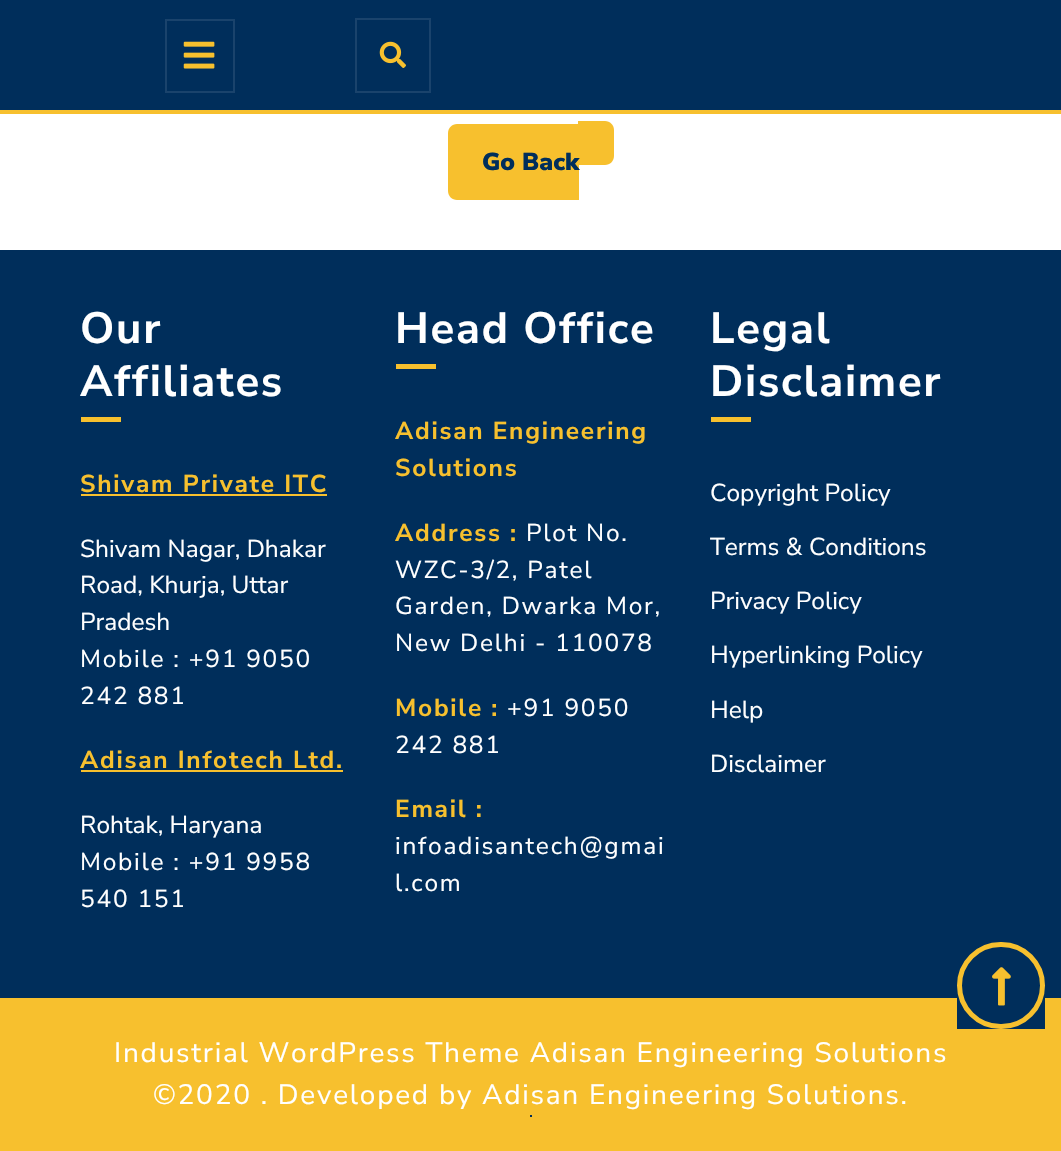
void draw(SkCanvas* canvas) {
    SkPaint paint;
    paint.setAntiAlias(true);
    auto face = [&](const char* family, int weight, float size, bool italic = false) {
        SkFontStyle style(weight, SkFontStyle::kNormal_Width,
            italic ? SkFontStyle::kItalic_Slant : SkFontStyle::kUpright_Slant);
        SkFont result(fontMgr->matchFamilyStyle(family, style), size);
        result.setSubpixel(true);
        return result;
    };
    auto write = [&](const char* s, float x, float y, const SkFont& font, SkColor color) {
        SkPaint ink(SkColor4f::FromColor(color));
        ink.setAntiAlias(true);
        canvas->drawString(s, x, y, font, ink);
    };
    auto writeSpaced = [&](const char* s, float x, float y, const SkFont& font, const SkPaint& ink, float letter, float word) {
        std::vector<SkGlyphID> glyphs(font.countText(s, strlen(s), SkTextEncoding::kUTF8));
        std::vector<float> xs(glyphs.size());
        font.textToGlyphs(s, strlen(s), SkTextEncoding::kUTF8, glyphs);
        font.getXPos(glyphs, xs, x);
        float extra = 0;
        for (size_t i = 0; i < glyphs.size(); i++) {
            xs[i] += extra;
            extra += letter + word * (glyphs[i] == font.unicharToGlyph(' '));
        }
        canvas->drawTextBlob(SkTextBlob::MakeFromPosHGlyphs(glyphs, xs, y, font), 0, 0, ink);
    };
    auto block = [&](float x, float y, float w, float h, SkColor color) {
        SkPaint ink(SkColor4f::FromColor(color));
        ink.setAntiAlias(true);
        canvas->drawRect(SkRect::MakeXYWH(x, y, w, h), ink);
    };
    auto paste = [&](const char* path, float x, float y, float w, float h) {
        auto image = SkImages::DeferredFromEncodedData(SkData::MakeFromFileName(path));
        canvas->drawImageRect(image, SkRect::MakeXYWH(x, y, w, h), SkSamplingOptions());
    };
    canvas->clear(SK_ColorWHITE);
    block(0, 0, 1061, 110, SkColorSetRGB(0, 46, 91));
    block(0, 110, 1061, 4, SkColorSetRGB(247, 192, 46));
    paint.setStyle(SkPaint::kStroke_Style);
    paint.setStrokeWidth(2);
    paint.setColor(SkColorSetRGB(26, 67, 108));
    canvas->drawRect(SkRect::MakeXYWH(166, 20, 68, 72), paint);
    paste("pic1.png", 183, 41, 32, 28);
    canvas->drawRect(SkRect::MakeXYWH(356, 19, 74, 73), paint);
    paste("pic2.png", 379, 41, 27, 27);
    paint.setStyle(SkPaint::kFill_Style);
    paint.setColor(SkColorSetRGB(247, 192, 46));
    canvas->drawPath(SkPathBuilder().moveTo(457, 124).lineTo(579, 124).lineTo(579, 200).lineTo(457, 200).cubicTo(452, 200, 448, 196, 448, 191).lineTo(448, 133).cubicTo(448, 128, 452, 124, 457, 124).close().detach(), paint);
    canvas->drawPath(SkPathBuilder().moveTo(578, 121).lineTo(605, 121).cubicTo(610, 121, 614, 125, 614, 130).lineTo(614, 156).cubicTo(614, 161, 610, 165, 605, 165).lineTo(578, 165).close().detach(), paint);
    auto kFont1 = face("Nunito Sans", 900, 24.5f);
    write("Go Back", 482, 170, kFont1, SkColorSetRGB(0, 46, 91));
    block(0, 250, 1061, 748, SkColorSetRGB(0, 46, 91));
    auto kFont2 = face("Nunito Sans", 700, 43.75f);
    paint.setColor(SK_ColorWHITE);
    writeSpaced("Our", 80, 343, kFont2, paint, 1.75f, 0);
    writeSpaced("Affiliates", 80, 396, kFont2, paint, 1.75f, 0);
    block(81, 417, 40, 5, SkColorSetRGB(247, 192, 46));
    auto kFont3 = face("Nunito Sans", 700, 24.5f);
    paint.setColor(SkColorSetRGB(247, 192, 46));
    writeSpaced("Shivam Private ITC", 80, 492, kFont3, paint, 1.75f, 0);
    block(81, 494, 246, 2, SkColorSetRGB(247, 192, 46));
    auto kFont4 = face("Nunito Sans", 400, 24.5f);
    write("Shivam Nagar, Dhakar", 80, 557, kFont4, SK_ColorWHITE);
    write("Road, Khurja, Uttar", 80, 593, kFont4, SK_ColorWHITE);
    write("Pradesh", 80, 630, kFont4, SK_ColorWHITE);
    paint.setColor(SK_ColorWHITE);
    writeSpaced("Mobile : +91 9050", 80, 667, kFont4, paint, 1.75f, 0);
    writeSpaced("242 881", 80, 704, kFont4, paint, 1.75f, 0);
    paint.setColor(SkColorSetRGB(247, 192, 46));
    writeSpaced("Adisan Infotech Ltd.", 80, 768, kFont3, paint, 1.75f, 0);
    block(81, 770, 262, 2, SkColorSetRGB(247, 192, 46));
    write("Rohtak, Haryana", 80, 833, kFont4, SK_ColorWHITE);
    paint.setColor(SK_ColorWHITE);
    writeSpaced("Mobile : +91 9958", 80, 870, kFont4, paint, 1.75f, 0);
    writeSpaced("540 151", 80, 907, kFont4, paint, 1.75f, 0);
    writeSpaced("Head Office", 395, 343, kFont2, paint, 1.75f, 0);
    block(396, 364, 40, 5, SkColorSetRGB(247, 192, 46));
    paint.setColor(SkColorSetRGB(247, 192, 46));
    writeSpaced("Adisan Engineering", 395, 439, kFont3, paint, 1.75f, 0);
    writeSpaced("Solutions", 395, 476, kFont3, paint, 1.75f, 0);
    writeSpaced("Address :", 395, 541, kFont3, paint, 1.75f, 0);
    paint.setColor(SK_ColorWHITE);
    writeSpaced("Plot No.", 526, 541, kFont4, paint, 1.75f, 0);
    writeSpaced("WZC-3/2, Patel", 395, 578, kFont4, paint, 1.75f, 0);
    writeSpaced("Garden, Dwarka Mor,", 395, 614, kFont4, paint, 1.75f, 0);
    writeSpaced("New Delhi - 110078", 395, 651, kFont4, paint, 1.75f, 0);
    paint.setColor(SkColorSetRGB(247, 192, 46));
    writeSpaced("Mobile :", 395, 716, kFont3, paint, 1.75f, 0);
    paint.setColor(SK_ColorWHITE);
    writeSpaced("+91 9050", 507, 716, kFont4, paint, 1.75f, 0);
    writeSpaced("242 881", 395, 753, kFont4, paint, 1.75f, 0);
    paint.setColor(SkColorSetRGB(247, 192, 46));
    writeSpaced("Email :", 395, 817, kFont3, paint, 1.75f, 0);
    paint.setColor(SK_ColorWHITE);
    writeSpaced("infoadisantech@gmai", 395, 854, kFont4, paint, 1.75f, 0);
    writeSpaced("l.com", 395, 891, kFont4, paint, 1.75f, 0);
    writeSpaced("Legal", 710, 343, kFont2, paint, 1.75f, 0);
    writeSpaced("Disclaimer", 710, 396, kFont2, paint, 1.75f, 0);
    block(711, 417, 40, 5, SkColorSetRGB(247, 192, 46));
    write("Copyright Policy", 710, 501, kFont4, SK_ColorWHITE);
    write("Terms & Conditions", 710, 555, kFont4, SK_ColorWHITE);
    write("Privacy Policy", 710, 609, kFont4, SK_ColorWHITE);
    write("Hyperlinking Policy", 710, 663, kFont4, SK_ColorWHITE);
    write("Help", 710, 718, kFont4, SK_ColorWHITE);
    write("Disclaimer", 710, 772, kFont4, SK_ColorWHITE);
    block(0, 998, 1061, 153, SkColorSetRGB(247, 192, 46));
    block(957, 998, 88, 31, SkColorSetRGB(0, 46, 91));
    block(530, 1115, 2, 2, SkColorSetRGB(0, 46, 91));
    paint.setStyle(SkPaint::kStroke_Style);
    paint.setStrokeWidth(5);
    paint.setColor(SkColorSetRGB(247, 192, 46));
    canvas->drawRoundRect(SkRect::MakeXYWH(959.5f, 944.5f, 83, 82), 41, 41, paint);
    paste("pic3.png", 992, 967, 19, 39);
    auto kFont5 = face("Nunito Sans", 400, 28);
    paint.setStyle(SkPaint::kFill_Style);
    paint.setColor(SK_ColorWHITE);
    writeSpaced("Industrial WordPress Theme Adisan Engineering Solutions", 114, 1062, kFont5, paint, 1.75f, 0);
    writeSpaced("©2020 . Developed by Adisan Engineering Solutions.", 153, 1104, kFont5, paint, 1.75f, 0);
}
